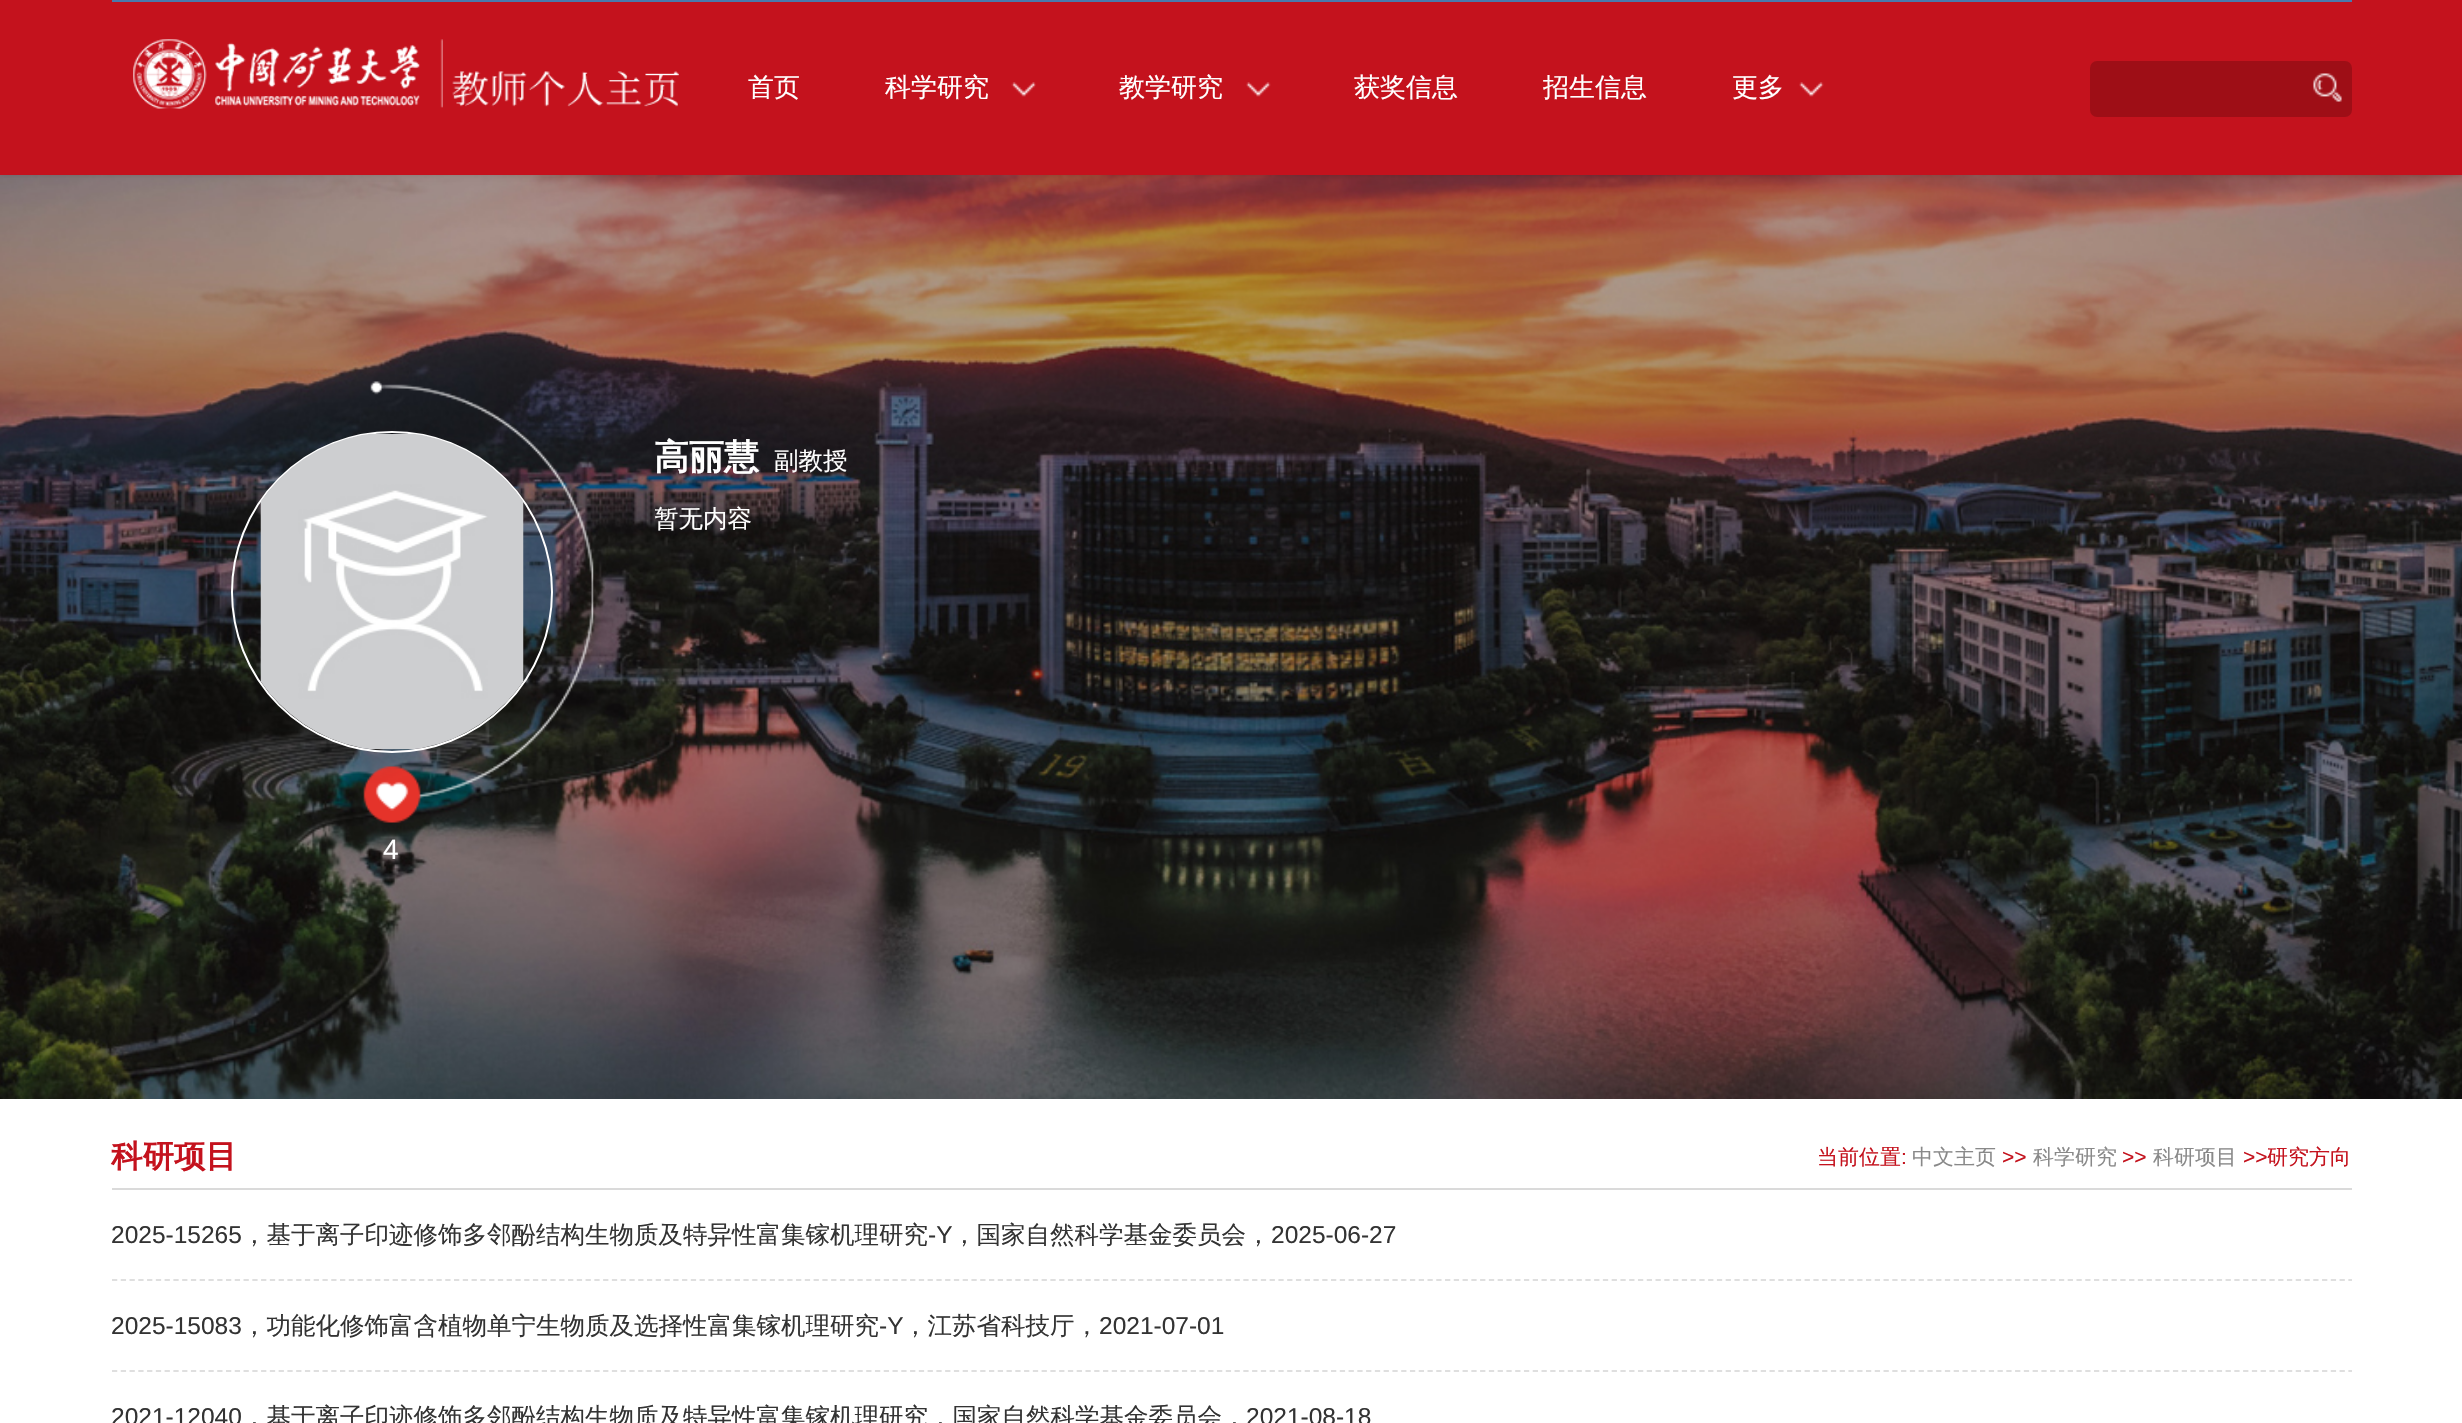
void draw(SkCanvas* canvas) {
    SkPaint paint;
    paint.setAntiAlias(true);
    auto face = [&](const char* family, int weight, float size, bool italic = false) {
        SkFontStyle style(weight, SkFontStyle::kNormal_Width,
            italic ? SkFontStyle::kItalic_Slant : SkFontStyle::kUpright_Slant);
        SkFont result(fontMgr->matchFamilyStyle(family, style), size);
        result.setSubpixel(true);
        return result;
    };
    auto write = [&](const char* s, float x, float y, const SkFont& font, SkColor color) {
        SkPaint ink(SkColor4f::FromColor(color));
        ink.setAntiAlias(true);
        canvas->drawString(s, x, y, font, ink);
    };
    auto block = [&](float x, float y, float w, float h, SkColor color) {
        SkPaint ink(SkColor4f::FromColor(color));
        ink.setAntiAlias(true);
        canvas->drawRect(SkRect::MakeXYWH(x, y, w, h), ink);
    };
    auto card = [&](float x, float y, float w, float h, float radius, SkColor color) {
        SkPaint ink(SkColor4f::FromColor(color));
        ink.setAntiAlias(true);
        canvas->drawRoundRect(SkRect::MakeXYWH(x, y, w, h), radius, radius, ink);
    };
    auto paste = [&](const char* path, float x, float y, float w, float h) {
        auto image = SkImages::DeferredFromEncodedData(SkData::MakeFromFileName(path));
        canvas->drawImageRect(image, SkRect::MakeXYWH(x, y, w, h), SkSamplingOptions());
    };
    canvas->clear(SK_ColorWHITE);
    paste("pic6.png", 0, 175, 2462, 924);
    paint.setColor(SkColorSetARGB(33, 0, 0, 0));
    paint.setMaskFilter(SkMaskFilter::MakeBlur(kNormal_SkBlurStyle, 2.5f));
    canvas->drawRect(SkRect::MakeXYWH(0, 0, 2462, 175), paint);
    paint.setMaskFilter(nullptr);
    block(0, 0, 2462, 175, SkColorSetRGB(196, 18, 29));
    block(112, 0, 2240, 2, SkColorSetRGB(73, 122, 172));
    paste("pic1.png", 133, 39, 546, 70);
    auto kFont1 = face("WenQuanYi Zen Hei", 500, 26);
    write("首页", 748, 96, kFont1, SK_ColorWHITE);
    write("科学研究", 885, 96, kFont1, SK_ColorWHITE);
    paste("pic2.png", 1011, 82, 25, 15);
    write("教学研究", 1119, 96, kFont1, SK_ColorWHITE);
    paste("pic3.png", 1246, 82, 25, 15);
    write("获奖信息", 1354, 96, kFont1, SK_ColorWHITE);
    write("招生信息", 1543, 96, kFont1, SK_ColorWHITE);
    write("更多", 1732, 96, kFont1, SK_ColorWHITE);
    paste("pic4.png", 1799, 82, 25, 15);
    card(2090, 61, 262, 56, 7, SkColorSetRGB(158, 14, 22));
    paste("pic5.png", 2313, 73, 29, 29);
    auto kFont2 = face("WenQuanYi Zen Hei", 700, 35);
    write("高丽慧", 654, 469, kFont2, SK_ColorWHITE);
    auto kFont3 = face("WenQuanYi Zen Hei", 500, 24.5f);
    write("副教授", 774, 469, kFont3, SK_ColorWHITE);
    canvas->save();
    canvas->clipRect(SkRect::MakeXYWH(655, 494, 1575, 49));
    write("暂无内容", 654, 527, kFont3, SK_ColorWHITE);
    canvas->restore();
    paste("pic7.png", 363, 381, 231, 442);
    paint.setStyle(SkPaint::kStroke_Style);
    paint.setStrokeWidth(2);
    paint.setColor(SK_ColorWHITE);
    canvas->drawCircle(392, 592, 160, paint);
    paste("pic8.png", 260, 434, 264, 315);
    auto kFont4 = face("Liberation Sans", 400, 28);
    write("4", 383, 859, kFont4, SK_ColorWHITE);
    block(112, 1188, 2240, 2, SkColorSetRGB(218, 218, 218));
    auto kFont5 = face("WenQuanYi Zen Hei", 700, 31.5f);
    write("科研项目", 111, 1167, kFont5, SkColorSetRGB(196, 18, 29));
    auto kFont6 = face("WenQuanYi Zen Hei", 500, 21);
    write("当前位置", 1817, 1164, kFont6, SkColorSetRGB(196, 18, 29));
    auto kFont7 = face("Liberation Sans", 400, 21);
    write(":", 1901, 1164, kFont7, SkColorSetRGB(196, 18, 29));
    write("中文主页", 1912, 1164, kFont6, SkColorSetRGB(137, 137, 137));
    write(">>", 2002, 1164, kFont7, SkColorSetRGB(196, 18, 29));
    write("科学研究", 2033, 1164, kFont6, SkColorSetRGB(137, 137, 137));
    write(">>", 2122, 1164, kFont7, SkColorSetRGB(196, 18, 29));
    write("科研项目", 2153, 1164, kFont6, SkColorSetRGB(137, 137, 137));
    write(">>", 2243, 1164, kFont7, SkColorSetRGB(196, 18, 29));
    write("研究方向", 2267, 1164, kFont6, SkColorSetRGB(196, 18, 29));
    paint.setStrokeWidth(1.8f);
    paint.setColor(SkColorSetRGB(223, 223, 223));
    paint.setPathEffect(SkDashPathEffect::Make({{5.25f, 3.52f}}, 0));
    canvas->drawPath(SkPathBuilder().moveTo(112, 1280).lineTo(2352, 1280).detach(), paint);
    paint.setPathEffect(nullptr);
    auto kFont8 = face("Liberation Sans", 400, 24.5f);
    write("2025-15265", 111, 1243, kFont8, SkColorSetRGB(51, 51, 51));
    write("，基于离子印迹修饰多邻酚结构生物质及特异性富集镓机理研究", 242, 1243, kFont3, SkColorSetRGB(51, 51, 51));
    write("-Y", 928, 1243, kFont8, SkColorSetRGB(51, 51, 51));
    write("，国家自然科学基金委员会，", 952, 1243, kFont3, SkColorSetRGB(51, 51, 51));
    write("2025-06-27", 1271, 1243, kFont8, SkColorSetRGB(51, 51, 51));
    paint.setPathEffect(SkDashPathEffect::Make({{5.25f, 3.52f}}, 0));
    canvas->drawPath(SkPathBuilder().moveTo(112, 1371).lineTo(2352, 1371).detach(), paint);
    paint.setPathEffect(nullptr);
    write("2025-15083", 111, 1334, kFont8, SkColorSetRGB(51, 51, 51));
    write("，功能化修饰富含植物单宁生物质及选择性富集镓机理研究", 242, 1334, kFont3, SkColorSetRGB(51, 51, 51));
    write("-Y", 879, 1334, kFont8, SkColorSetRGB(51, 51, 51));
    write("，江苏省科技厅，", 903, 1334, kFont3, SkColorSetRGB(51, 51, 51));
    write("2021-07-01", 1099, 1334, kFont8, SkColorSetRGB(51, 51, 51));
    write("2021-12040", 111, 1425, kFont8, SkColorSetRGB(51, 51, 51));
    write("，基于离子印迹修饰多邻酚结构生物质及特异性富集镓机理研究，国家自然科学基金委员会，", 242, 1425, kFont3, SkColorSetRGB(51, 51, 51));
    write("2021-08-18", 1246, 1425, kFont8, SkColorSetRGB(51, 51, 51));
}
